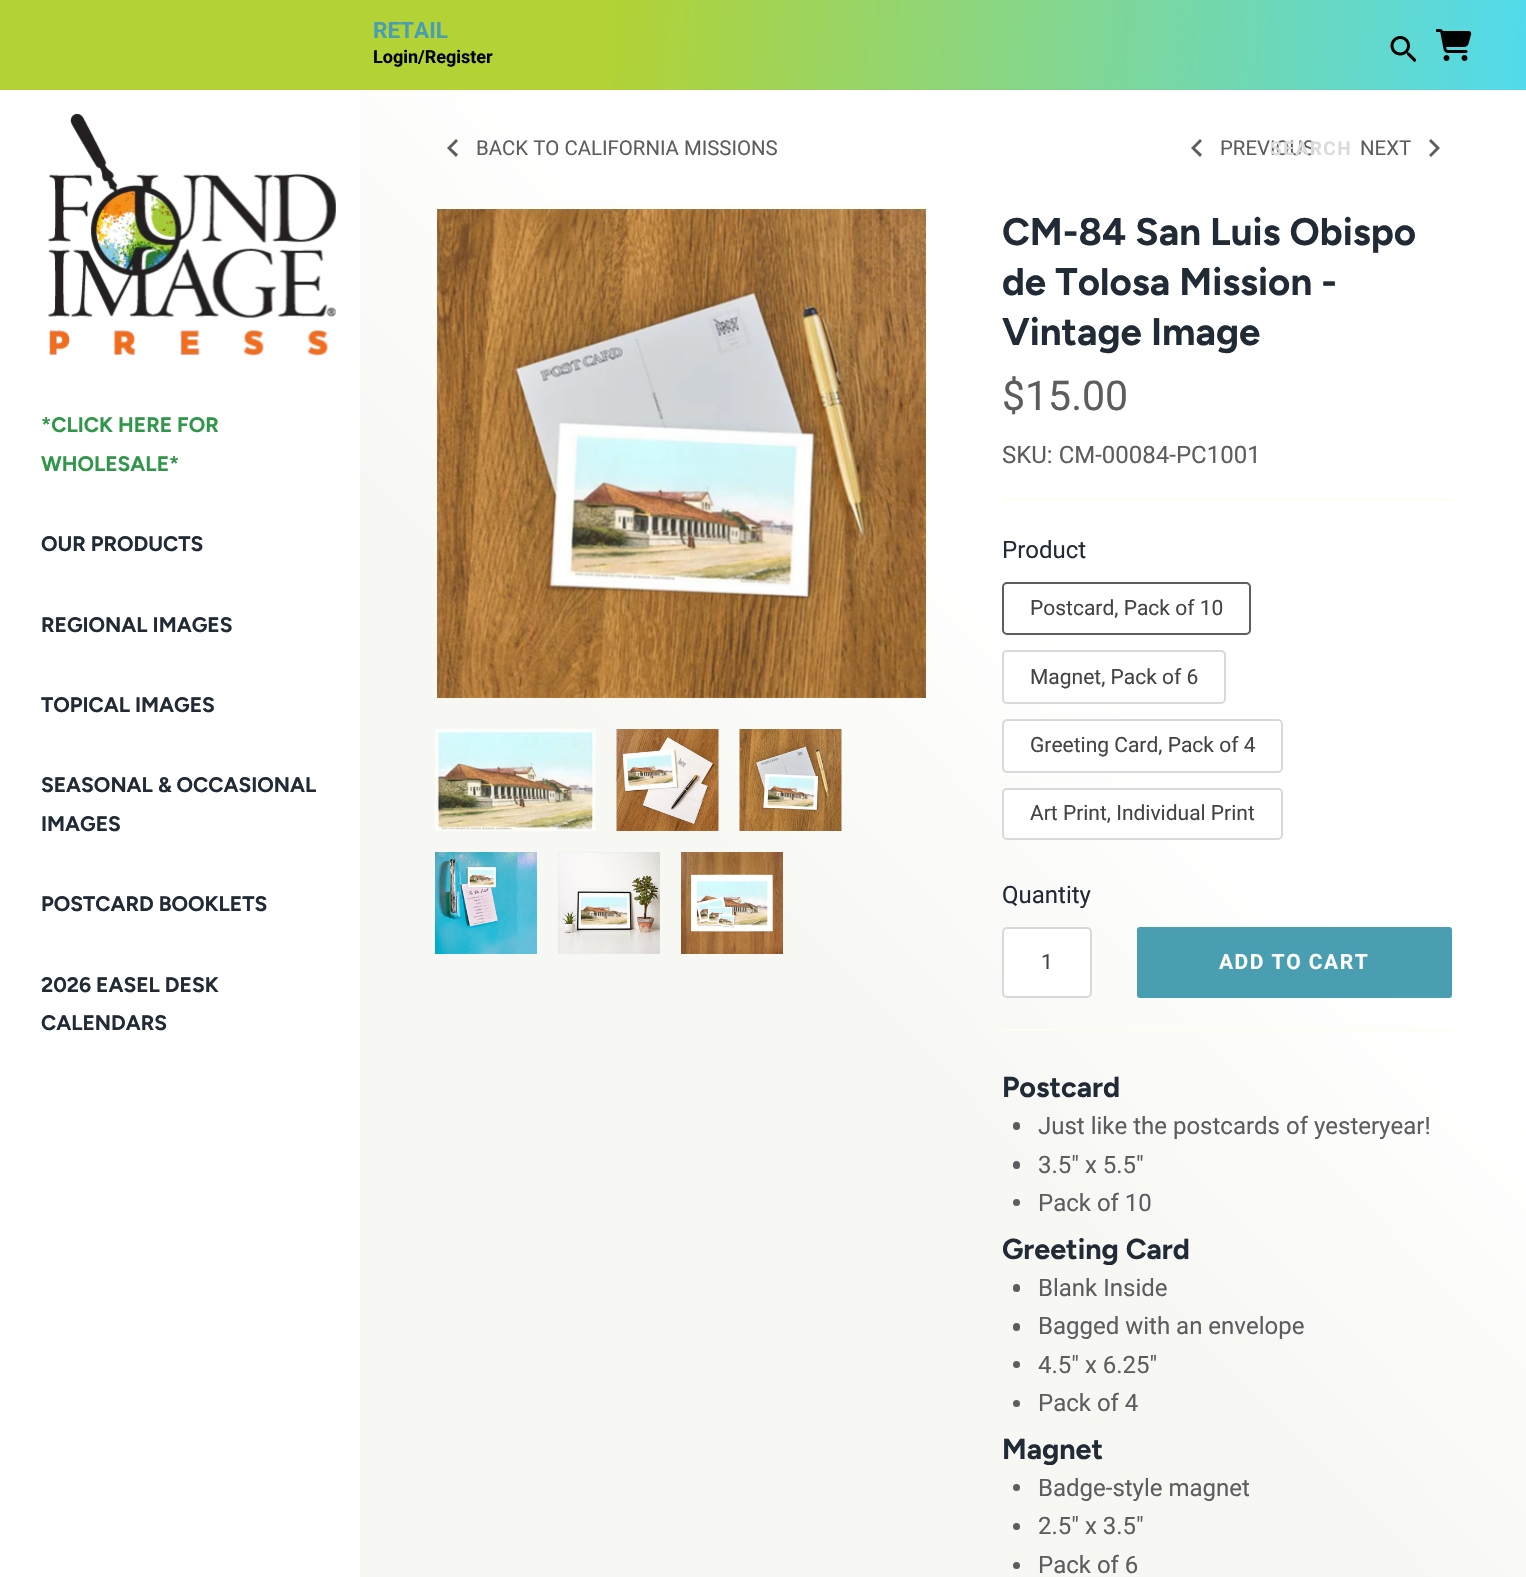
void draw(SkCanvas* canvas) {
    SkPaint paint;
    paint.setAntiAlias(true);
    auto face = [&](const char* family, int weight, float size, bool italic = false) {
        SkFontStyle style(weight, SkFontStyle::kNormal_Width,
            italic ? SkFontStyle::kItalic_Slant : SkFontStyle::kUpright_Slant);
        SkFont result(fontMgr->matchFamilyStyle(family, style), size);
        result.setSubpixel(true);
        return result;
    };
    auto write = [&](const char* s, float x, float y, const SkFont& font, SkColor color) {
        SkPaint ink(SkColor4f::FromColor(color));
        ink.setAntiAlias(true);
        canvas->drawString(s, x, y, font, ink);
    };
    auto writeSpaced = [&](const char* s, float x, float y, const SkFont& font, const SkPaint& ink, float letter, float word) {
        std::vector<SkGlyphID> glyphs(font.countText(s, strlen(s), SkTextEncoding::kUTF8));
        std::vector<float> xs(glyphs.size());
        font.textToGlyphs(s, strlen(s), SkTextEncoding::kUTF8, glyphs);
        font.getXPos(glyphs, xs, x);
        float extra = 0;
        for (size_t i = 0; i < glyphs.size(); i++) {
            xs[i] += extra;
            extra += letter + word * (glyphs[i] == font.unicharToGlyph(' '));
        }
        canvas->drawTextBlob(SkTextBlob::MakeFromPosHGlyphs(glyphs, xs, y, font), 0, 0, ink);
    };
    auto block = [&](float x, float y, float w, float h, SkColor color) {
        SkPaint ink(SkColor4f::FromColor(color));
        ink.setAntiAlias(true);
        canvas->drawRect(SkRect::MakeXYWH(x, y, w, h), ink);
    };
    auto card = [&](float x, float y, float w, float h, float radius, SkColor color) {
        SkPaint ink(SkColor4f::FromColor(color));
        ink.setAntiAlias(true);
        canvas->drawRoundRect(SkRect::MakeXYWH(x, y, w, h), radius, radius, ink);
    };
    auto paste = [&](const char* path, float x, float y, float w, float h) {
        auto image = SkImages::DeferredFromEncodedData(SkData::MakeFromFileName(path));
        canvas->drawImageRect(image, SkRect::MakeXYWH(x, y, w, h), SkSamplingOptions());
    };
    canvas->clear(SK_ColorWHITE);
    {
        const SkColor colors[] = {SkColorSetRGB(178, 210, 53), SkColorSetRGB(82, 218, 236)};
        const float stops[] = {0.4f, 1};
        const SkPoint ends[] = {{0.6f, -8}, {1526, 98}};
        paint.setShader(SkGradientShader::MakeLinear(ends, colors, stops, 2, SkTileMode::kClamp));
        paint.setAlpha(255);
    }
    canvas->drawRect(SkRect::MakeXYWH(0, 0, 1526, 90), paint);
    auto kFont1 = face("Roboto", 700, 22.5f);
    write("RETAIL", 373, 38, kFont1, SkColorSetRGB(73, 159, 177));
    auto kFont2 = face("Roboto", 700, 18);
    write("Login/Register", 373, 63, kFont2, SK_ColorBLACK);
    paste("pic1.png", 1390, 36, 26, 26);
    paste("pic2.png", 1436, 29, 36, 32);
    {
        const SkColor colors[] = {SkColorSetRGB(247, 247, 244), SK_ColorWHITE};
        const float stops[] = {0.46f, 0.65f};
        const SkPoint ends[] = {{-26, 1551}, {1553, 27}};
        paint.setShader(SkGradientShader::MakeLinear(ends, colors, stops, 2, SkTileMode::kClamp));
        paint.setAlpha(255);
    }
    canvas->drawRect(SkRect::MakeXYWH(360, 90, 1166, 1487), paint);
    auto kFont3 = face("Roboto", 400, 20.4f);
    write("PREVIOUS", 1220, 155, kFont3, SkColorSetRGB(93, 93, 96));
    auto kFont4 = face("Roboto", 700, 19);
    paint.setShader(nullptr);
    paint.setColor(SkColorSetRGB(219, 219, 220));
    writeSpaced("SEARCH", 1270, 155, kFont4, paint, 1.5f, 0);
    paste("pic3.png", 48, 114, 288, 242);
    auto kFont5 = face("Figtree", 700, 21);
    write("*CLICK HERE FOR", 41, 432, kFont5, SkColorSetRGB(48, 151, 74));
    write("WHOLESALE*", 41, 471, kFont5, SkColorSetRGB(48, 151, 74));
    write("OUR PRODUCTS", 41, 551, kFont5, SkColorSetRGB(33, 43, 54));
    write("REGIONAL IMAGES", 41, 632, kFont5, SkColorSetRGB(33, 43, 54));
    write("TOPICAL IMAGES", 41, 712, kFont5, SkColorSetRGB(33, 43, 54));
    write("SEASONAL & OCCASIONAL", 41, 792, kFont5, SkColorSetRGB(33, 43, 54));
    write("IMAGES", 41, 831, kFont5, SkColorSetRGB(33, 43, 54));
    write("POSTCARD BOOKLETS", 41, 911, kFont5, SkColorSetRGB(33, 43, 54));
    write("2026 EASEL DESK", 41, 992, kFont5, SkColorSetRGB(33, 43, 54));
    write("CALENDARS", 41, 1030, kFont5, SkColorSetRGB(33, 43, 54));
    write("BACK TO CALIFORNIA MISSIONS", 476, 155, kFont3, SkColorSetRGB(93, 93, 96));
    paint.setColor(SkColorSetRGB(93, 93, 96));
    canvas->drawPath(SkPathBuilder().moveTo(458, 154.5f).lineTo(451, 148).lineTo(458, 141).lineTo(456, 139).lineTo(447, 148).lineTo(456, 157).close().detach(), paint);
    canvas->drawPath(SkPathBuilder().moveTo(1202, 154.5f).lineTo(1195, 148).lineTo(1202, 141).lineTo(1200, 139).lineTo(1191, 148).lineTo(1200, 157).close().detach(), paint);
    write("NEXT", 1360, 155, kFont3, SkColorSetRGB(93, 93, 96));
    canvas->drawPath(SkPathBuilder().moveTo(1429, 155).lineTo(1436, 148).lineTo(1429, 141).lineTo(1431, 139).lineTo(1440, 148).lineTo(1431, 157).close().detach(), paint);
    paint.setStyle(SkPaint::kStroke_Style);
    paint.setStrokeWidth(2);
    paint.setColor(SkColorSetARGB(102, 255, 254, 238));
    canvas->drawRect(SkRect::MakeXYWH(436, 208, 490, 490), paint);
    paste("pic4.png", 437, 209, 489, 489);
    paste("pic5.png", 435, 729, 161, 102);
    paste("pic6.png", 616, 729, 103, 102);
    paste("pic7.png", 739, 729, 103, 102);
    paste("pic8.png", 435, 852, 102, 102);
    paste("pic9.png", 558, 852, 102, 102);
    paste("pic10.png", 681, 852, 102, 102);
    auto kFont6 = face("Figtree", 700, 38.4f);
    write("CM-84 San Luis Obispo", 1002, 245, kFont6, SkColorSetRGB(33, 43, 54));
    write("de Tolosa Mission -", 1002, 295, kFont6, SkColorSetRGB(33, 43, 54));
    write("Vintage Image", 1002, 345, kFont6, SkColorSetRGB(33, 43, 54));
    auto kFont7 = face("Roboto", 400, 41);
    write("$15.00", 1002, 410, kFont7, SkColorSetRGB(93, 93, 96));
    auto kFont8 = face("Roboto", 400, 24);
    write("SKU: CM-00084-PC1001", 1002, 463, kFont8, SkColorSetRGB(93, 93, 96));
    block(1002, 498, 450, 2, SkColorSetRGB(255, 254, 238));
    write("Product", 1002, 558, kFont8, SkColorSetRGB(33, 43, 54));
    paint.setColor(SkColorSetRGB(93, 93, 96));
    canvas->drawRoundRect(SkRect::MakeXYWH(1003, 583, 247, 51), 4, 4, paint);
    auto kFont9 = face("Roboto", 400, 21);
    write("Postcard, Pack of 10", 1030, 615, kFont9, SkColorSetRGB(68, 68, 68));
    paint.setStyle(SkPaint::kFill_Style);
    paint.setColor(SK_ColorWHITE);
    canvas->drawRoundRect(SkRect::MakeXYWH(1003, 651, 222, 52), 4, 4, paint);
    paint.setStyle(SkPaint::kStroke_Style);
    paint.setColor(SkColorSetRGB(217, 217, 217));
    canvas->drawRoundRect(SkRect::MakeXYWH(1003, 651, 222, 52), 4, 4, paint);
    write("Magnet, Pack of 6", 1030, 684, kFont9, SkColorSetRGB(68, 68, 68));
    paint.setStyle(SkPaint::kFill_Style);
    paint.setColor(SK_ColorWHITE);
    canvas->drawRoundRect(SkRect::MakeXYWH(1003, 720, 279, 52), 4, 4, paint);
    paint.setStyle(SkPaint::kStroke_Style);
    paint.setColor(SkColorSetRGB(217, 217, 217));
    canvas->drawRoundRect(SkRect::MakeXYWH(1003, 720, 279, 52), 4, 4, paint);
    write("Greeting Card, Pack of 4", 1030, 752, kFont9, SkColorSetRGB(68, 68, 68));
    paint.setStyle(SkPaint::kFill_Style);
    paint.setColor(SK_ColorWHITE);
    canvas->drawRoundRect(SkRect::MakeXYWH(1003, 789, 279, 50), 4, 4, paint);
    paint.setStyle(SkPaint::kStroke_Style);
    paint.setColor(SkColorSetRGB(217, 217, 217));
    canvas->drawRoundRect(SkRect::MakeXYWH(1003, 789, 279, 50), 4, 4, paint);
    write("Art Print, Individual Print", 1030, 820, kFont9, SkColorSetRGB(68, 68, 68));
    write("Quantity", 1002, 903, kFont8, SkColorSetRGB(33, 43, 54));
    card(1002, 927, 90, 71, 5, SK_ColorWHITE);
    paint.setColor(SkColorSetARGB(38, 0, 0, 0));
    canvas->drawRoundRect(SkRect::MakeXYWH(1003, 928, 88, 69), 4, 4, paint);
    write("1", 1041, 969, kFont9, SkColorSetRGB(68, 68, 68));
    paint.setStyle(SkPaint::kFill_Style);
    paint.setColor(SkColorSetRGB(73, 159, 177));
    canvas->drawRoundRect(SkRect::MakeXYWH(1138, 928, 313, 69), 2, 2, paint);
    paint.setStyle(SkPaint::kStroke_Style);
    canvas->drawRoundRect(SkRect::MakeXYWH(1138, 928, 313, 69), 2, 2, paint);
    auto kFont10 = face("Roboto", 700, 21);
    paint.setStyle(SkPaint::kFill_Style);
    paint.setColor(SkColorSetRGB(253, 253, 249));
    writeSpaced("ADD TO CART", 1219, 969, kFont10, paint, 1.5f, 0);
    block(1002, 1029, 450, 2, SkColorSetRGB(255, 254, 238));
    auto kFont11 = face("Figtree", 700, 28.75f);
    write("Postcard", 1002, 1097, kFont11, SkColorSetRGB(33, 43, 54));
    card(1013, 1122, 7, 8, 3.5f, SkColorSetRGB(93, 93, 96));
    write("Just like the postcards of yesteryear!", 1038, 1134, kFont8, SkColorSetRGB(93, 93, 96));
    card(1013, 1161, 7, 8, 3.5f, SkColorSetRGB(93, 93, 96));
    write("3.5\" x 5.5\"", 1038, 1173, kFont8, SkColorSetRGB(93, 93, 96));
    paint.setColor(SkColorSetRGB(93, 93, 96));
    canvas->drawCircle(1016.5f, 1202.5f, 3.5f, paint);
    write("Pack of 10", 1038, 1211, kFont8, SkColorSetRGB(93, 93, 96));
    write("Greeting Card", 1002, 1259, kFont11, SkColorSetRGB(33, 43, 54));
    card(1013, 1284, 7, 8, 3.5f, SkColorSetRGB(93, 93, 96));
    write("Blank Inside", 1038, 1296, kFont8, SkColorSetRGB(93, 93, 96));
    card(1013, 1323, 7, 8, 3.5f, SkColorSetRGB(93, 93, 96));
    write("Bagged with an envelope", 1038, 1334, kFont8, SkColorSetRGB(93, 93, 96));
    canvas->drawCircle(1016.5f, 1364.5f, 3.5f, paint);
    write("4.5\" x 6.25\"", 1038, 1373, kFont8, SkColorSetRGB(93, 93, 96));
    canvas->drawCircle(1016.5f, 1403.5f, 3.5f, paint);
    write("Pack of 4", 1038, 1411, kFont8, SkColorSetRGB(93, 93, 96));
    write("Magnet", 1002, 1459, kFont11, SkColorSetRGB(33, 43, 54));
    canvas->drawCircle(1016.5f, 1487.5f, 3.5f, paint);
    write("Badge-style magnet", 1038, 1496, kFont8, SkColorSetRGB(93, 93, 96));
    canvas->drawCircle(1016.5f, 1526.5f, 3.5f, paint);
    write("2.5\" x 3.5\"", 1038, 1534, kFont8, SkColorSetRGB(93, 93, 96));
    canvas->drawCircle(1016.5f, 1565.5f, 3.5f, paint);
    write("Pack of 6", 1038, 1573, kFont8, SkColorSetRGB(93, 93, 96));
}
